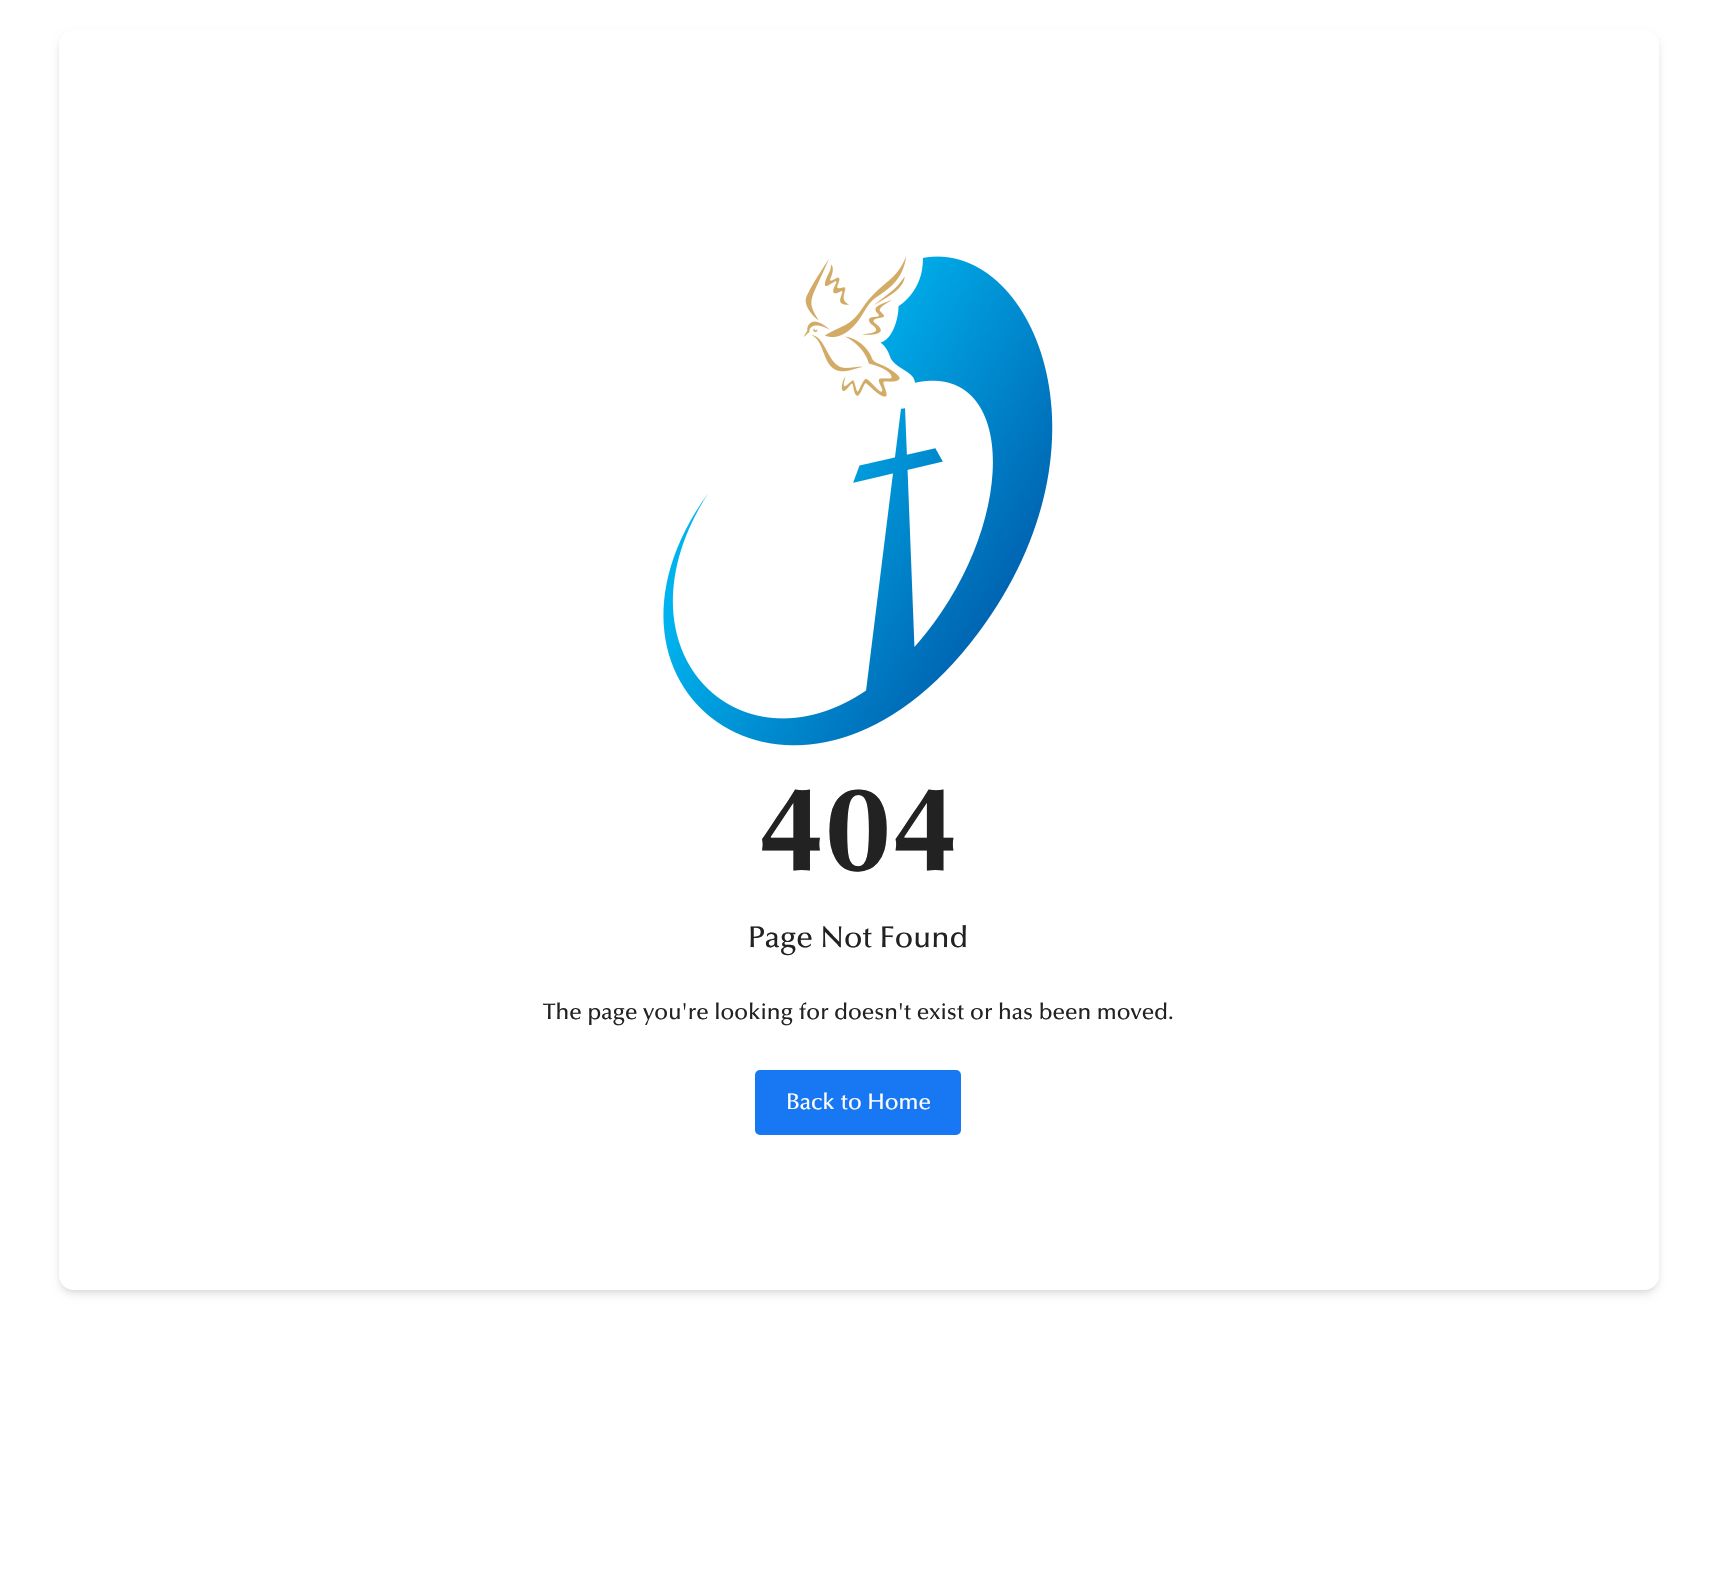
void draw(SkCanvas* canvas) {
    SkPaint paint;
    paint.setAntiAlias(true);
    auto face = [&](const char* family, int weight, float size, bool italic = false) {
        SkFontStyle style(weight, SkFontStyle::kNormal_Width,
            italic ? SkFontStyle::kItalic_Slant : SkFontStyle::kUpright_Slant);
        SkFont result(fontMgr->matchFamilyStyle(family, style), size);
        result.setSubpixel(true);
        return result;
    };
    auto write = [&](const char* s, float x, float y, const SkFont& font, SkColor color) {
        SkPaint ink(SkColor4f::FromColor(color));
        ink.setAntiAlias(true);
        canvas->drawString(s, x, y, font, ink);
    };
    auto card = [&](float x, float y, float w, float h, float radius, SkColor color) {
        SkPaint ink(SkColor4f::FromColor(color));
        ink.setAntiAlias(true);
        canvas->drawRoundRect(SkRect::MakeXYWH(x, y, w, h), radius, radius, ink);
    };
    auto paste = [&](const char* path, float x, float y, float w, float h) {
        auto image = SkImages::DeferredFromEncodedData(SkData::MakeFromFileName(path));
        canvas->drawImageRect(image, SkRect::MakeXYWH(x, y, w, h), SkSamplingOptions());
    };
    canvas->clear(SK_ColorWHITE);
    canvas->save();
    canvas->clipPath(SkPathBuilder(SkPathFillType::kEvenOdd).moveTo(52, 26).lineTo(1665, 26).lineTo(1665, 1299).lineTo(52, 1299).close().moveTo(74, 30).lineTo(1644, 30).cubicTo(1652.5f, 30, 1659, 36.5f, 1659, 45).lineTo(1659, 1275).cubicTo(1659, 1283.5f, 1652.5f, 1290, 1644, 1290).lineTo(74, 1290).cubicTo(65.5f, 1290, 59, 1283.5f, 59, 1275).lineTo(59, 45).cubicTo(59, 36.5f, 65.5f, 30, 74, 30).close().detach(), true);
    paint.setColor(SkColorSetARGB(26, 0, 0, 0));
    paint.setMaskFilter(SkMaskFilter::MakeBlur(kNormal_SkBlurStyle, 2.5f));
    canvas->drawRoundRect(SkRect::MakeXYWH(61, 35, 1595, 1255), 13, 13, paint);
    paint.setMaskFilter(nullptr);
    canvas->restore();
    canvas->save();
    canvas->clipPath(SkPathBuilder(SkPathFillType::kEvenOdd).moveTo(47, 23).lineTo(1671, 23).lineTo(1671, 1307).lineTo(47, 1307).close().moveTo(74, 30).lineTo(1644, 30).cubicTo(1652.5f, 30, 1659, 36.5f, 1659, 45).lineTo(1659, 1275).cubicTo(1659, 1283.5f, 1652.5f, 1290, 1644, 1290).lineTo(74, 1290).cubicTo(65.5f, 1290, 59, 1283.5f, 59, 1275).lineTo(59, 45).cubicTo(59, 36.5f, 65.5f, 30, 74, 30).close().detach(), true);
    paint.setMaskFilter(SkMaskFilter::MakeBlur(kNormal_SkBlurStyle, 4));
    canvas->drawRoundRect(SkRect::MakeXYWH(60, 36, 1598, 1258), 14, 14, paint);
    paint.setMaskFilter(nullptr);
    canvas->restore();
    card(59, 30, 1600, 1260, 15, SkColorSetARGB(153, 255, 255, 255));
    paste("pic1.png", 663, 255, 390, 491);
    auto kFont1 = face("Optima", 700, 120);
    write("404", 758, 870, kFont1, SkColorSetRGB(34, 34, 34));
    auto kFont2 = face("Optima", 500, 30);
    write("Page Not Found", 748, 947, kFont2, SkColorSetRGB(34, 34, 34));
    auto kFont3 = face("Optima", 500, 22.5f);
    write("The page you're looking for doesn't exist or has been moved.", 543, 1019, kFont3, SkColorSetRGB(34, 34, 34));
    card(755, 1070, 206, 65, 5, SkColorSetRGB(24, 119, 242));
    write("Back to Home", 786, 1109, kFont3, SK_ColorWHITE);
}
